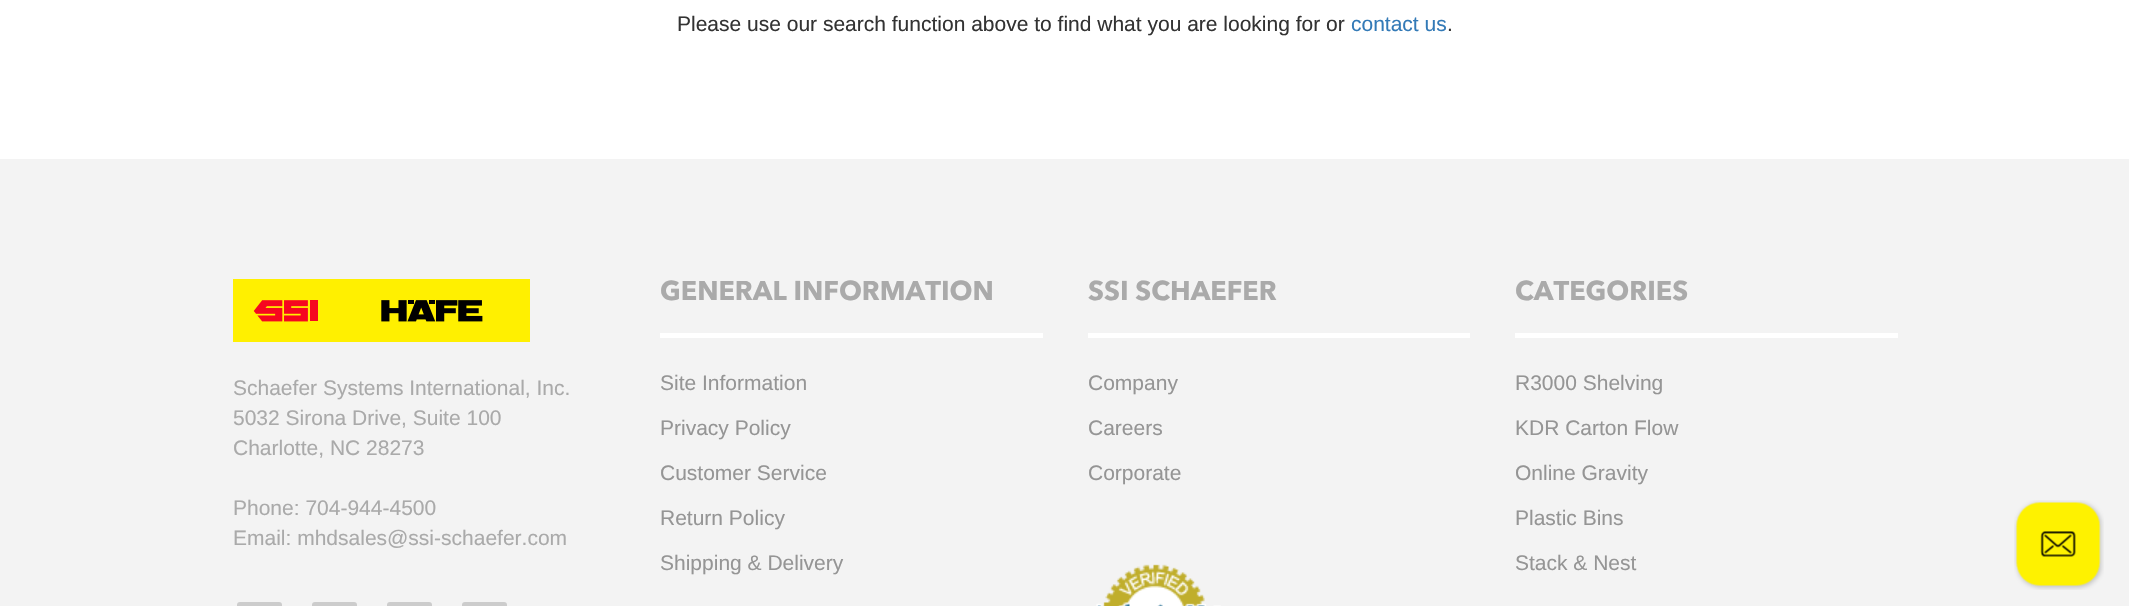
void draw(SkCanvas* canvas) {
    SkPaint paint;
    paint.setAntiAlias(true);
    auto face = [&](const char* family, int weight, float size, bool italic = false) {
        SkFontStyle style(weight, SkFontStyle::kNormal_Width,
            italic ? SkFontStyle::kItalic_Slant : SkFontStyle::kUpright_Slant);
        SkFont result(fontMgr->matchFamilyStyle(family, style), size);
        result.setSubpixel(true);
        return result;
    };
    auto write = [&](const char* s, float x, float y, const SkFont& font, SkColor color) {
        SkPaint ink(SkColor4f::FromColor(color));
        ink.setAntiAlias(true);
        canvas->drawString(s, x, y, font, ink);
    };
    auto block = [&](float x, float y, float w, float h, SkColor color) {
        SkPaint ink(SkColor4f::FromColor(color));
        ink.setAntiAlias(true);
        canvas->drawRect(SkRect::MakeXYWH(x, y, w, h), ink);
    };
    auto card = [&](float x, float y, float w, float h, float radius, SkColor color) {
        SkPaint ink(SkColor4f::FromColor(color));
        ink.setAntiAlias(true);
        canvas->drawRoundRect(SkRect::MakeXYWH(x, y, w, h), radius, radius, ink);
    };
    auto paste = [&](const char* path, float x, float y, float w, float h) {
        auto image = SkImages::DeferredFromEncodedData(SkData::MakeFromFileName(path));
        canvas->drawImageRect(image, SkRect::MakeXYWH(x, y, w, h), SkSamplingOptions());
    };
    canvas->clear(SK_ColorWHITE);
    auto kFont1 = face("Liberation Sans", 400, 21);
    write("Please use our search function above to find what you are looking for or", 677, 31, kFont1, SkColorSetRGB(51, 51, 51));
    write("contact us", 1351, 31, kFont1, SkColorSetRGB(51, 122, 183));
    write(".", 1447, 31, kFont1, SkColorSetRGB(51, 51, 51));
    block(0, 159, 2129, 447, SkColorSetRGB(243, 243, 243));
    paste("pic1.png", 233, 279, 297, 63);
    write("Schaefer Systems International, Inc.", 233, 395, kFont1, SkColorSetRGB(170, 170, 170));
    write("5032 Sirona Drive, Suite 100", 233, 425, kFont1, SkColorSetRGB(170, 170, 170));
    write("Charlotte, NC 28273", 233, 455, kFont1, SkColorSetRGB(170, 170, 170));
    write("Phone: 704-944-4500", 233, 515, kFont1, SkColorSetRGB(170, 170, 170));
    write("Email: mhdsales@ssi-schaefer.com", 233, 545, kFont1, SkColorSetRGB(170, 170, 170));
    card(237, 602, 45, 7, 3, SkColorSetRGB(204, 204, 204));
    card(312, 602, 45, 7, 3, SkColorSetRGB(204, 204, 204));
    card(387, 602, 45, 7, 3, SkColorSetRGB(204, 204, 204));
    card(462, 602, 45, 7, 3, SkColorSetRGB(204, 204, 204));
    block(660, 333, 383, 5, SK_ColorWHITE);
    auto kFont2 = face("Avenir Next", 700, 27);
    write("GENERAL INFORMATION", 660, 300, kFont2, SkColorSetRGB(170, 170, 170));
    write("Site Information", 660, 390, kFont1, SkColorSetRGB(149, 149, 149));
    write("Privacy Policy", 660, 435, kFont1, SkColorSetRGB(149, 149, 149));
    write("Customer Service", 660, 480, kFont1, SkColorSetRGB(149, 149, 149));
    write("Return Policy", 660, 525, kFont1, SkColorSetRGB(149, 149, 149));
    write("Shipping & Delivery", 660, 570, kFont1, SkColorSetRGB(149, 149, 149));
    block(1088, 333, 382, 5, SK_ColorWHITE);
    write("SSI SCHAEFER", 1088, 300, kFont2, SkColorSetRGB(170, 170, 170));
    write("Company", 1088, 390, kFont1, SkColorSetRGB(149, 149, 149));
    write("Careers", 1088, 435, kFont1, SkColorSetRGB(149, 149, 149));
    write("Corporate", 1088, 480, kFont1, SkColorSetRGB(149, 149, 149));
    paste("pic2.png", 1096, 564, 125, 42);
    block(1515, 333, 383, 5, SK_ColorWHITE);
    write("CATEGORIES", 1515, 300, kFont2, SkColorSetRGB(170, 170, 170));
    write("R3000 Shelving", 1515, 390, kFont1, SkColorSetRGB(149, 149, 149));
    write("KDR Carton Flow", 1515, 435, kFont1, SkColorSetRGB(149, 149, 149));
    write("Online Gravity", 1515, 480, kFont1, SkColorSetRGB(149, 149, 149));
    write("Plastic Bins", 1515, 525, kFont1, SkColorSetRGB(149, 149, 149));
    write("Stack & Nest", 1515, 570, kFont1, SkColorSetRGB(149, 149, 149));
    paste("pic3.png", 2014, 500, 90, 90);
}
